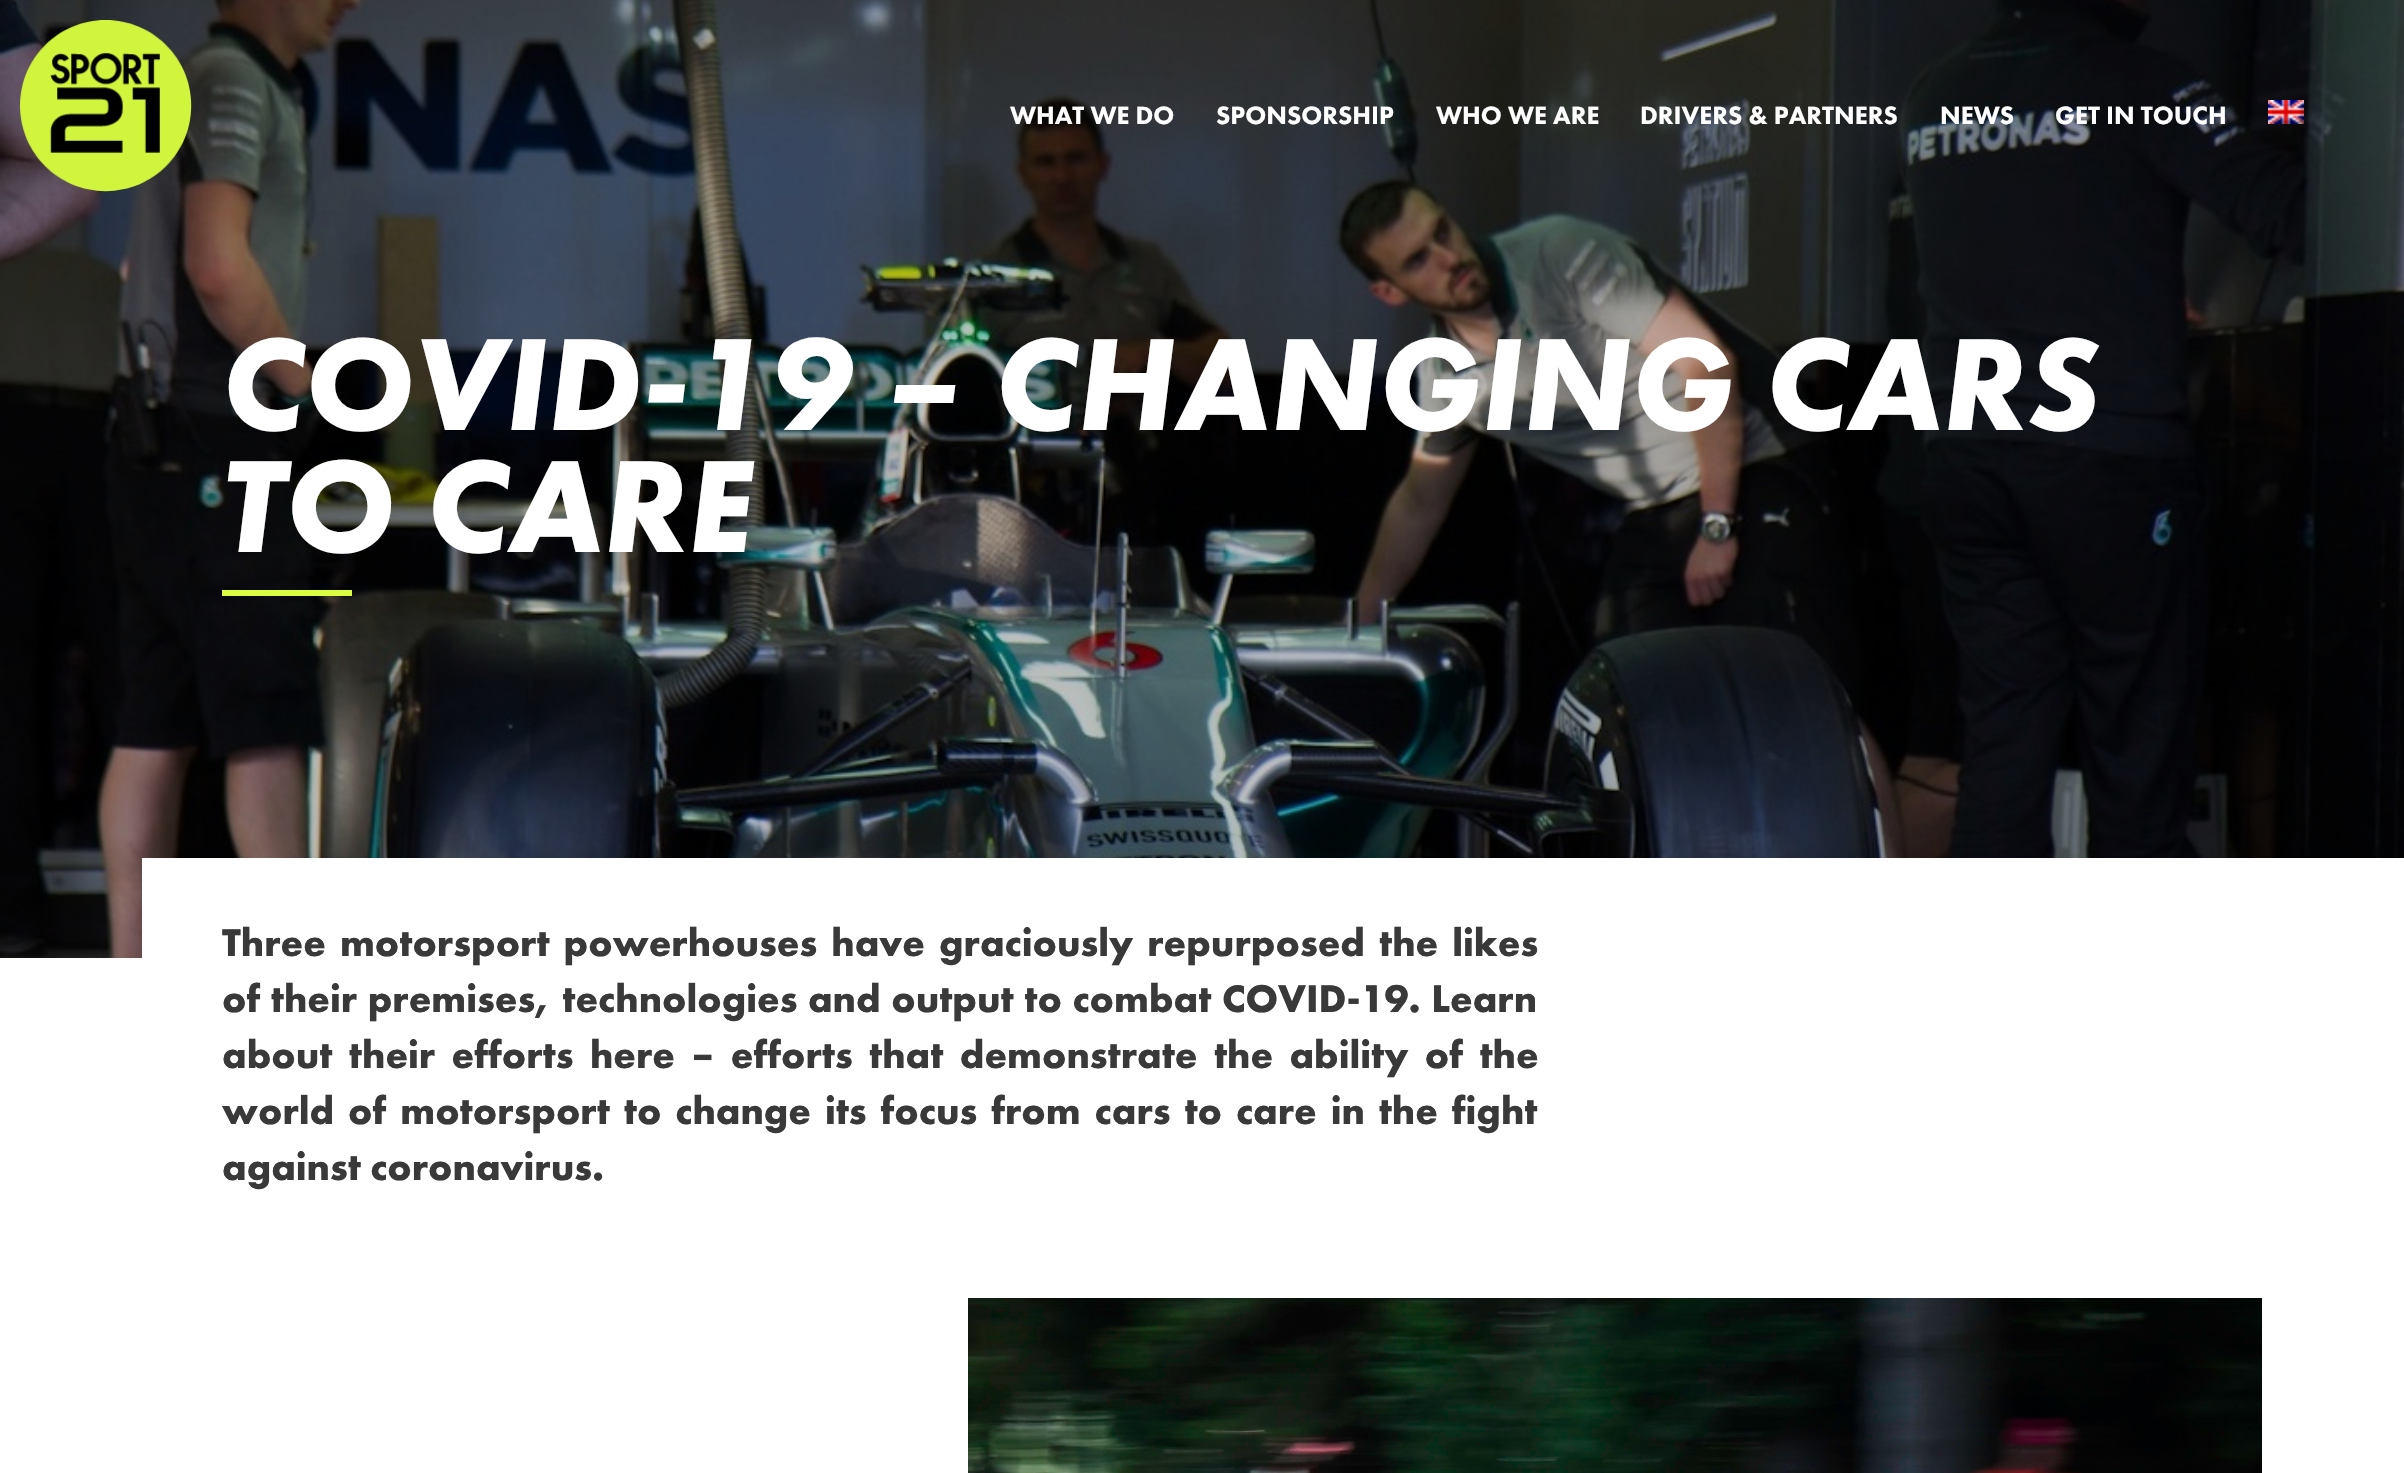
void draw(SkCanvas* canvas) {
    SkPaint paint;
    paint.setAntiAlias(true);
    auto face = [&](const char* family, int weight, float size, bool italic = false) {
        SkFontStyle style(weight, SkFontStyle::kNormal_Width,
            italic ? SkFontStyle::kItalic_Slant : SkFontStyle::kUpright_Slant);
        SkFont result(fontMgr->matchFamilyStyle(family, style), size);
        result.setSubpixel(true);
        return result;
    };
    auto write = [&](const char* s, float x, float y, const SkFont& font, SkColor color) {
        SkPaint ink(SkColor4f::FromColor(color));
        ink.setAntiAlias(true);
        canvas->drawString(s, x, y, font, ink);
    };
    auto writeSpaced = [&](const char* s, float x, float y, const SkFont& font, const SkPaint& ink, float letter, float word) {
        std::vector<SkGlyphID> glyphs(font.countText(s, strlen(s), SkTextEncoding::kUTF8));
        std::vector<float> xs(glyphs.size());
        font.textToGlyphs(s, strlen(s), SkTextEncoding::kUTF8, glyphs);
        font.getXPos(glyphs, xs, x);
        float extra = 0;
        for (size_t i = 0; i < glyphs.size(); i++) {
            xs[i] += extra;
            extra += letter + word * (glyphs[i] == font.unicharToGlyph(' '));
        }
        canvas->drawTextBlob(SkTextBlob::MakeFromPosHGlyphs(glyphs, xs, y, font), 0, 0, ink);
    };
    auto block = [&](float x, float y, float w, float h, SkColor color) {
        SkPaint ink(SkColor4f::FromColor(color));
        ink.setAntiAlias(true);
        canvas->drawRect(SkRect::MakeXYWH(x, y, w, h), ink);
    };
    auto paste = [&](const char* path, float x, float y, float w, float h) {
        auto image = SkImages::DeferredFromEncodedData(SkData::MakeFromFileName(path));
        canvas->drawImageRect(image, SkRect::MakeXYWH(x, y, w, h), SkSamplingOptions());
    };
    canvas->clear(SK_ColorWHITE);
    paste("pic3.png", 0, 0, 2404, 958);
    paste("pic1.png", 20, 20, 172, 172);
    auto kFont1 = face("Futura PT", 900, 26);
    write("WHAT WE DO", 1010, 124, kFont1, SK_ColorWHITE);
    write("SPONSORSHIP", 1216, 124, kFont1, SK_ColorWHITE);
    write("WHO WE ARE", 1436, 124, kFont1, SK_ColorWHITE);
    write("DRIVERS & PARTNERS", 1640, 124, kFont1, SK_ColorWHITE);
    write("NEWS", 1940, 124, kFont1, SK_ColorWHITE);
    write("GET IN TOUCH", 2055, 124, kFont1, SK_ColorWHITE);
    paste("pic2.png", 2268, 100, 36, 24);
    auto kFont2 = face("Futura PT", 700, 136, true);
    write("COVID-19 – CHANGING CARS", 222, 430, kFont2, SK_ColorWHITE);
    write("TO CARE", 222, 552, kFont2, SK_ColorWHITE);
    block(222, 590, 130, 6, SkColorSetRGB(217, 255, 64));
    paste("pic4.png", 2262, 858, 142, 100);
    block(142, 858, 2120, 100, SK_ColorWHITE);
    auto kFont3 = face("Futura PT", 700, 40);
    paint.setColor(SkColorSetRGB(57, 57, 57));
    writeSpaced("Three motorsport powerhouses have graciously repurposed the likes", 222, 956, kFont3, paint, 0, 4.75f);
    writeSpaced("of their premises, technologies and output to combat COVID-19. Learn", 222, 1012, kFont3, paint, 0, 1.25f);
    writeSpaced("about their efforts here – efforts that demonstrate the ability of the", 222, 1068, kFont3, paint, 0, 7.1f);
    writeSpaced("world of motorsport to change its focus from cars to care in the fight", 222, 1124, kFont3, paint, 0, 4.6f);
    write("against coronavirus.", 222, 1180, kFont3, SkColorSetRGB(57, 57, 57));
    paste("pic5.png", 968, 1298, 1294, 175);
}
